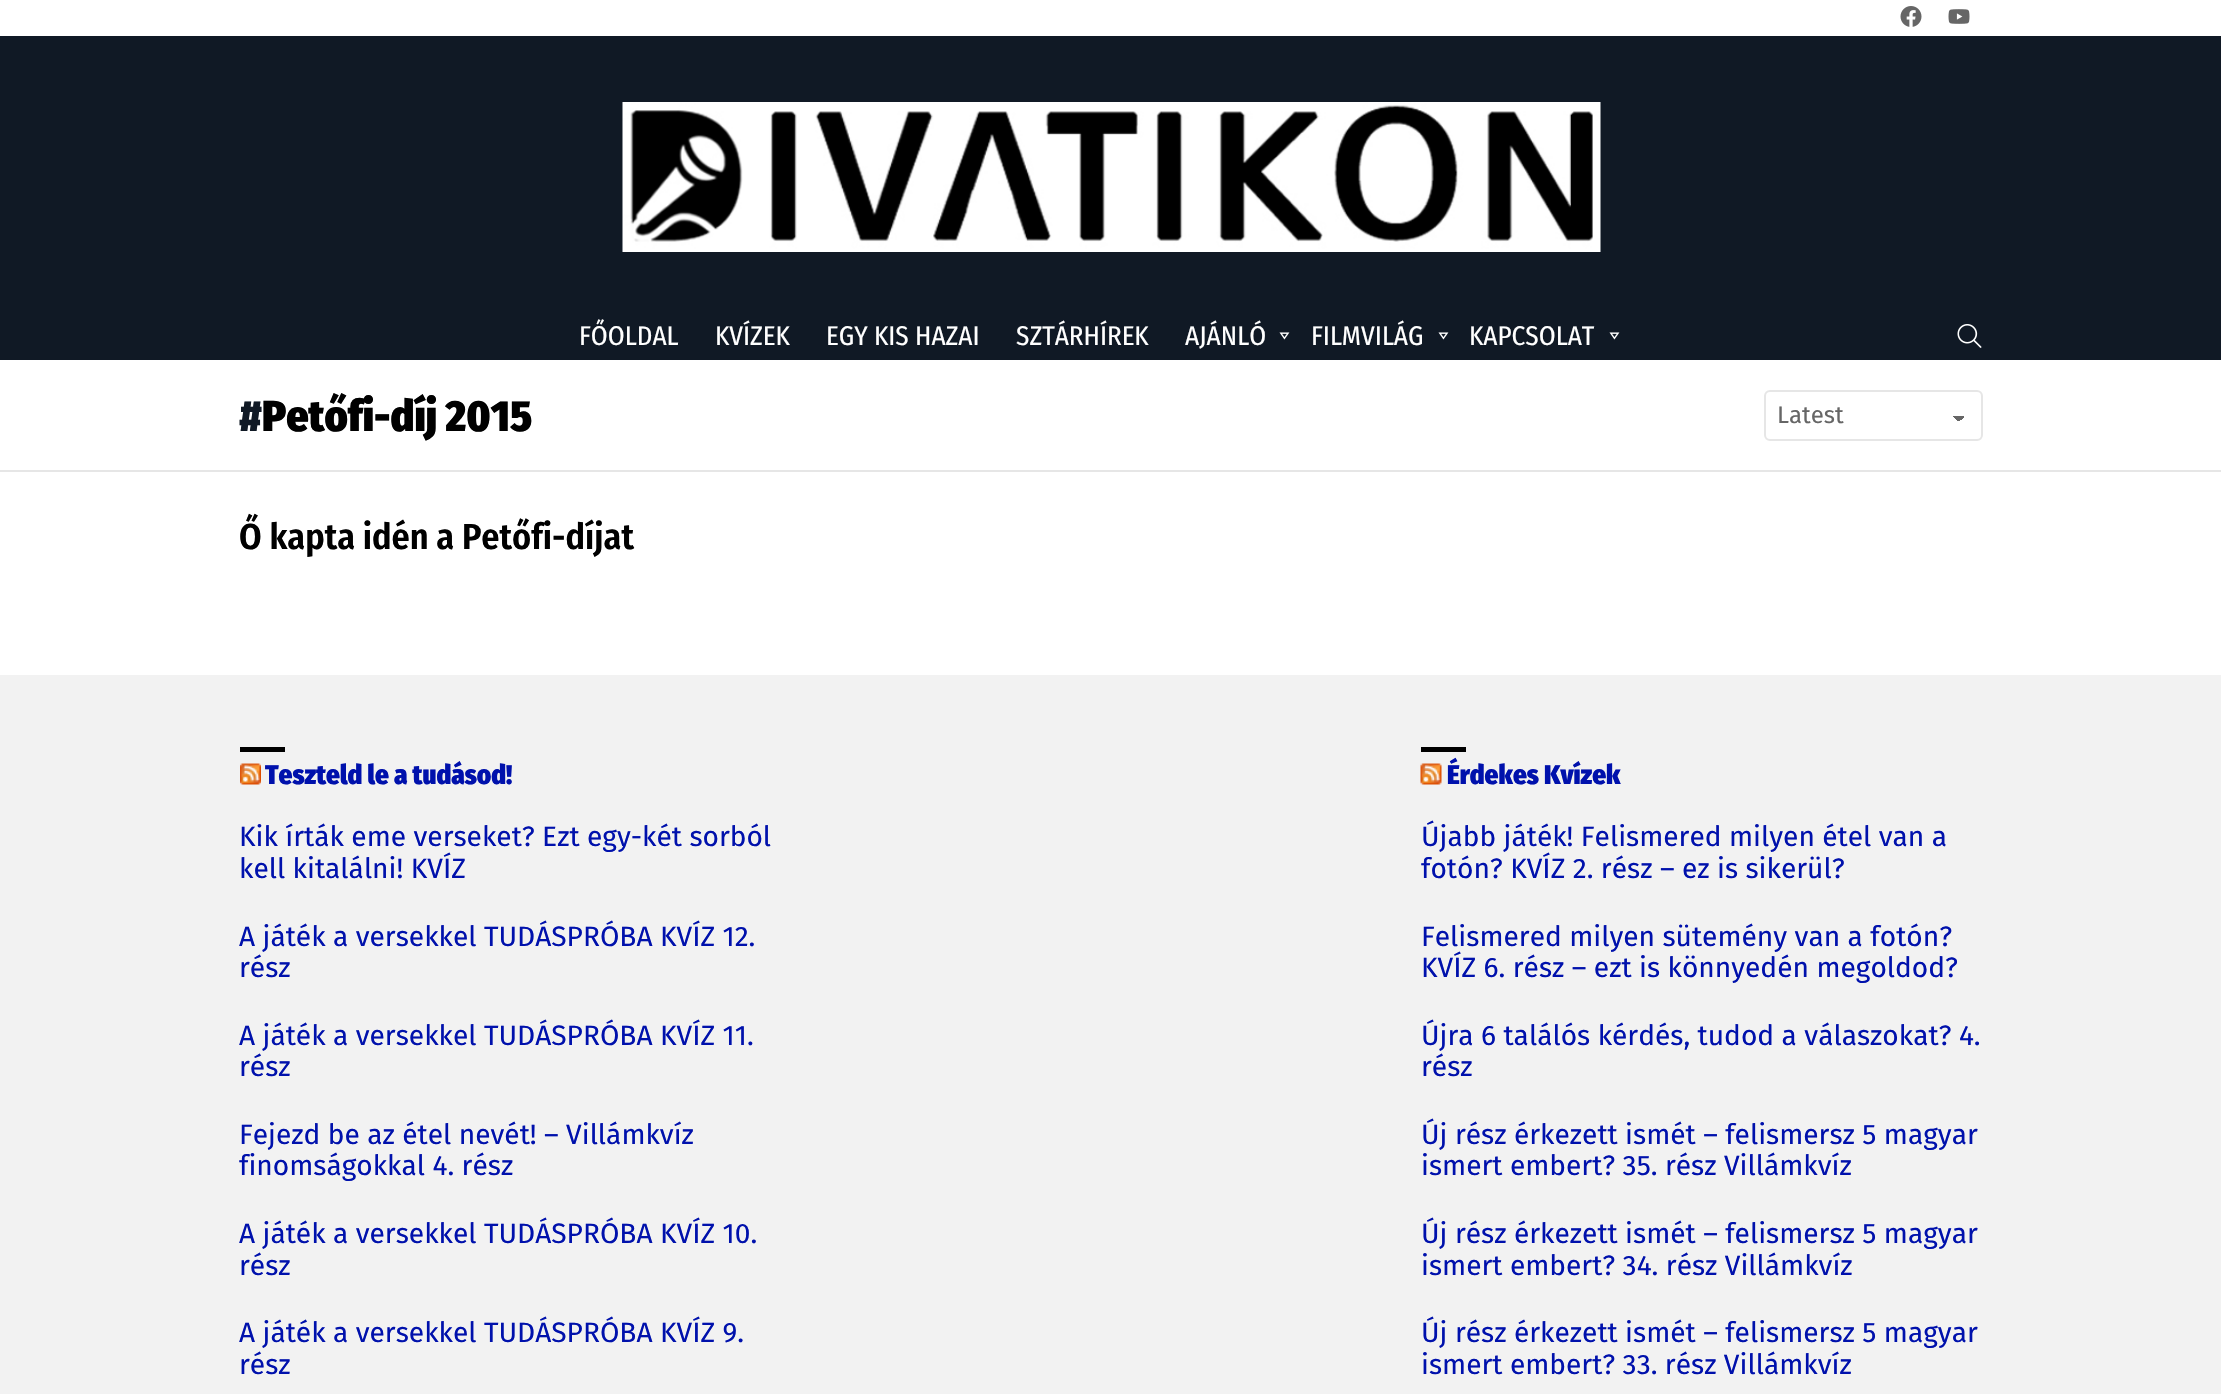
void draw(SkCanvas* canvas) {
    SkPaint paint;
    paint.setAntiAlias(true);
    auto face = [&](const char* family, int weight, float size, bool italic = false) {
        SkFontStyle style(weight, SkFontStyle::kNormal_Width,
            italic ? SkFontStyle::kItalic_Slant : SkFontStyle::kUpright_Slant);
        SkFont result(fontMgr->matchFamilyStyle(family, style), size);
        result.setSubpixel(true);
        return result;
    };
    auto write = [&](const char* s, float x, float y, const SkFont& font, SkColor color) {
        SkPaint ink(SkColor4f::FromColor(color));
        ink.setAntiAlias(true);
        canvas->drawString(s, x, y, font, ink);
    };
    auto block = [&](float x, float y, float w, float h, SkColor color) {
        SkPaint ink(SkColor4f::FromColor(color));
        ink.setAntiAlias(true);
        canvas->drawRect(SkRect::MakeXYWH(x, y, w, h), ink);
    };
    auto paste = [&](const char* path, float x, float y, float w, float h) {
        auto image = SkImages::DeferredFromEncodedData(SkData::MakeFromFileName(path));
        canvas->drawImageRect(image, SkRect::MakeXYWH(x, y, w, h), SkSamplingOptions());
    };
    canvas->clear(SK_ColorWHITE);
    paste("pic1.png", 1900, 6, 22, 21);
    paste("pic2.png", 1948, 9, 22, 15);
    block(0, 36, 2221, 324, SkColorSetRGB(16, 25, 37));
    paste("pic3.png", 622, 102, 979, 150);
    auto kFont1 = face("Fira Sans Condensed", 400, 27);
    write("FŐOLDAL", 579, 345, kFont1, SK_ColorWHITE);
    write("KVÍZEK", 715, 345, kFont1, SK_ColorWHITE);
    write("EGY KIS HAZAI", 826, 345, kFont1, SK_ColorWHITE);
    write("SZTÁRHÍREK", 1016, 345, kFont1, SK_ColorWHITE);
    write("AJÁNLÓ", 1185, 345, kFont1, SK_ColorWHITE);
    paste("pic4.png", 1279, 332, 11, 8);
    write("FILMVILÁG", 1311, 345, kFont1, SK_ColorWHITE);
    paste("pic4.png", 1438, 332, 11, 8);
    write("KAPCSOLAT", 1469, 345, kFont1, SK_ColorWHITE);
    paste("pic4.png", 1609, 332, 11, 8);
    paste("pic5.png", 1957, 324, 25, 24);
    auto kFont2 = face("Fira Sans Condensed", 900, 43.5f);
    write("#", 239, 431, kFont2, SkColorSetRGB(16, 25, 37));
    write("Petőfi-díj 2015", 262, 431, kFont2, SK_ColorBLACK);
    {
        const SkColor colors[] = {SkColorSetRGB(102, 102, 102), SK_ColorWHITE};
        const float stops[] = {0.5f, 0.5f};
        const SkPoint ends[] = {{1959, 415}, {1966, 422}};
        paint.setShader(SkGradientShader::MakeLinear(ends, colors, stops, 2, SkTileMode::kClamp));
        paint.setAlpha(255);
    }
    canvas->drawRect(SkRect::MakeXYWH(1959, 416, 8, 6), paint);
    {
        const SkColor colors[] = {SK_ColorWHITE, SkColorSetRGB(102, 102, 102)};
        const float stops[] = {0.5f, 0.5f};
        const SkPoint ends[] = {{1952, 422}, {1959, 415}};
        paint.setShader(SkGradientShader::MakeLinear(ends, colors, stops, 2, SkTileMode::kClamp));
        paint.setAlpha(255);
    }
    canvas->drawRect(SkRect::MakeXYWH(1952, 416, 7, 5), paint);
    paint.setStyle(SkPaint::kStroke_Style);
    paint.setStrokeWidth(2);
    paint.setShader(nullptr);
    paint.setColor(SkColorSetRGB(230, 230, 230));
    canvas->drawRoundRect(SkRect::MakeXYWH(1765, 391, 217, 49), 5, 5, paint);
    auto kFont3 = face("Fira Sans", 400, 24);
    write("Latest", 1777, 423, kFont3, SkColorSetRGB(102, 102, 102));
    block(0, 470, 2221, 2, SkColorSetRGB(230, 230, 230));
    auto kFont4 = face("Fira Sans Condensed", 600, 36);
    write("Ő kapta idén a Petőfi-díjat", 239, 549, kFont4, SK_ColorBLACK);
    block(0, 675, 2221, 719, SkColorSetRGB(242, 242, 242));
    block(240, 747, 45, 5, SK_ColorBLACK);
    paste("pic6.png", 240, 763, 21, 22);
    auto kFont5 = face("Fira Sans Condensed", 900, 27);
    write("Teszteld le a tudásod!", 265, 784, kFont5, SkColorSetRGB(0, 17, 172));
    auto kFont6 = face("Fira Sans", 400, 28.1f);
    write("Kik írták eme verseket? Ezt egy-két sorból", 239, 846, kFont6, SkColorSetRGB(0, 17, 172));
    write("kell kitalálni! KVÍZ", 239, 878, kFont6, SkColorSetRGB(0, 17, 172));
    write("A játék a versekkel TUDÁSPRÓBA KVÍZ 12.", 239, 946, kFont6, SkColorSetRGB(0, 17, 172));
    write("rész", 239, 977, kFont6, SkColorSetRGB(0, 17, 172));
    write("A játék a versekkel TUDÁSPRÓBA KVÍZ 11.", 239, 1045, kFont6, SkColorSetRGB(0, 17, 172));
    write("rész", 239, 1076, kFont6, SkColorSetRGB(0, 17, 172));
    write("Fejezd be az étel nevét! – Villámkvíz", 239, 1144, kFont6, SkColorSetRGB(0, 17, 172));
    write("finomságokkal 4. rész", 239, 1175, kFont6, SkColorSetRGB(0, 17, 172));
    write("A játék a versekkel TUDÁSPRÓBA KVÍZ 10.", 239, 1243, kFont6, SkColorSetRGB(0, 17, 172));
    write("rész", 239, 1275, kFont6, SkColorSetRGB(0, 17, 172));
    write("A játék a versekkel TUDÁSPRÓBA KVÍZ 9.", 239, 1342, kFont6, SkColorSetRGB(0, 17, 172));
    write("rész", 239, 1374, kFont6, SkColorSetRGB(0, 17, 172));
    block(1421, 747, 45, 5, SK_ColorBLACK);
    paste("pic7.png", 1420, 763, 22, 22);
    write("Érdekes Kvízek", 1447, 784, kFont5, SkColorSetRGB(0, 17, 172));
    write("Újabb játék! Felismered milyen étel van a", 1421, 846, kFont6, SkColorSetRGB(0, 17, 172));
    write("fotón? KVÍZ 2. rész – ez is sikerül?", 1421, 878, kFont6, SkColorSetRGB(0, 17, 172));
    write("Felismered milyen sütemény van a fotón?", 1421, 946, kFont6, SkColorSetRGB(0, 17, 172));
    write("KVÍZ 6. rész – ezt is könnyedén megoldod?", 1421, 977, kFont6, SkColorSetRGB(0, 17, 172));
    write("Újra 6 találós kérdés, tudod a válaszokat? 4.", 1421, 1045, kFont6, SkColorSetRGB(0, 17, 172));
    write("rész", 1421, 1076, kFont6, SkColorSetRGB(0, 17, 172));
    write("Új rész érkezett ismét – felismersz 5 magyar", 1421, 1144, kFont6, SkColorSetRGB(0, 17, 172));
    write("ismert embert? 35. rész Villámkvíz", 1421, 1175, kFont6, SkColorSetRGB(0, 17, 172));
    write("Új rész érkezett ismét – felismersz 5 magyar", 1421, 1243, kFont6, SkColorSetRGB(0, 17, 172));
    write("ismert embert? 34. rész Villámkvíz", 1421, 1275, kFont6, SkColorSetRGB(0, 17, 172));
    write("Új rész érkezett ismét – felismersz 5 magyar", 1421, 1342, kFont6, SkColorSetRGB(0, 17, 172));
    write("ismert embert? 33. rész Villámkvíz", 1421, 1374, kFont6, SkColorSetRGB(0, 17, 172));
}
